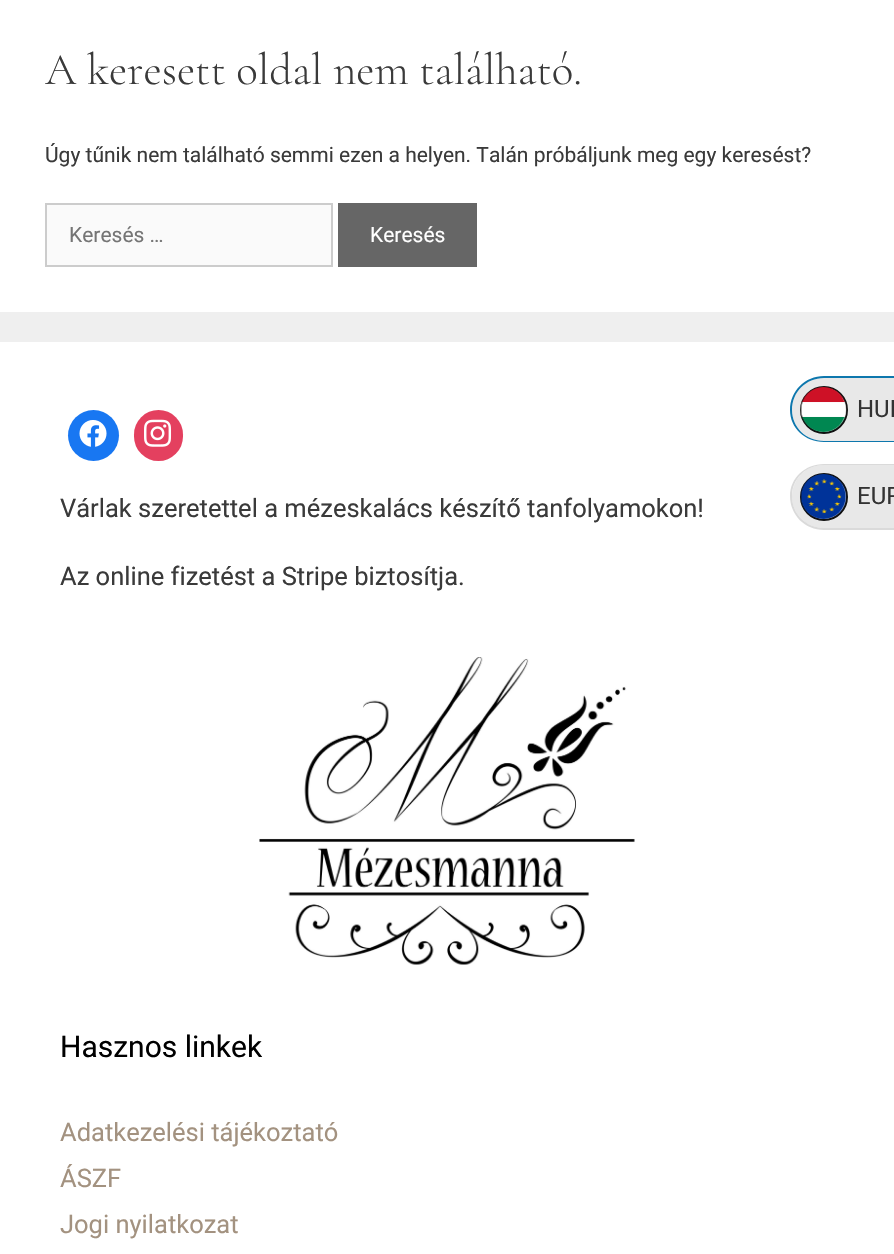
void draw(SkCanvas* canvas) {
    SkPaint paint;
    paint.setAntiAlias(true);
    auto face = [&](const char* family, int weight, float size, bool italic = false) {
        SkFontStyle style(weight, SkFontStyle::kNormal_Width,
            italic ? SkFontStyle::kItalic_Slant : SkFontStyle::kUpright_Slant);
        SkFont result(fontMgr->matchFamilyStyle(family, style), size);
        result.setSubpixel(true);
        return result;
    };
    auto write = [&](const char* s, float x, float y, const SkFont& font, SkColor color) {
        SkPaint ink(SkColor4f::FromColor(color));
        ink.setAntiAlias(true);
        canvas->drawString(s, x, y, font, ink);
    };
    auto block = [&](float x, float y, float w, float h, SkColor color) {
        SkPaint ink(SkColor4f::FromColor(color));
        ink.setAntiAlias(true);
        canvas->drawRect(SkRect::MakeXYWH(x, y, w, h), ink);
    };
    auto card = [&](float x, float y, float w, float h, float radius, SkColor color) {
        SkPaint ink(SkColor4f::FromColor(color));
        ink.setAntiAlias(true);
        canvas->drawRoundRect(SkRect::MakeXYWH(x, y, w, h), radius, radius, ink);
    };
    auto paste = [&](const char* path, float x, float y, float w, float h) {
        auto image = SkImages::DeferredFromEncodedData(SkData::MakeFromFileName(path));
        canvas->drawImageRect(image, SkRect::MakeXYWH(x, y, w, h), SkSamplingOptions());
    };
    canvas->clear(SkColorSetRGB(239, 239, 239));
    block(0, 0, 894, 312, SK_ColorWHITE);
    auto kFont1 = face("Cormorant Garamond", 300, 45);
    write("A keresett oldal nem található.", 45, 84, kFont1, SkColorSetRGB(58, 58, 58));
    auto kFont2 = face("Roboto", 400, 21);
    write("Úgy tűnik nem található semmi ezen a helyen. Talán próbáljunk meg egy keresést?", 45, 162, kFont2, SkColorSetRGB(58, 58, 58));
    paint.setColor(SkColorSetRGB(250, 250, 250));
    canvas->drawRect(SkRect::MakeXYWH(46, 204, 286, 62), paint);
    paint.setStyle(SkPaint::kStroke_Style);
    paint.setStrokeWidth(2);
    paint.setColor(SkColorSetRGB(204, 204, 204));
    canvas->drawRect(SkRect::MakeXYWH(46, 204, 286, 62), paint);
    write("Keresés …", 69, 242, kFont2, SkColorSetRGB(117, 117, 117));
    block(338, 203, 139, 64, SkColorSetRGB(102, 102, 102));
    write("Keresés", 370, 242, kFont2, SK_ColorWHITE);
    block(0, 342, 894, 912, SK_ColorWHITE);
    paint.setStyle(SkPaint::kFill_Style);
    paint.setColor(SkColorSetRGB(232, 232, 232));
    canvas->drawPath(SkPathBuilder().moveTo(823.5f, 378).lineTo(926, 378).lineTo(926, 441).lineTo(823.5f, 441).cubicTo(806, 441, 792, 427, 792, 409.5f).cubicTo(792, 392, 806, 378, 823.5f, 378).close().detach(), paint);
    paint.setColor(SkColorSetRGB(13, 119, 173));
    canvas->drawPath(SkPathBuilder(SkPathFillType::kEvenOdd).moveTo(824, 376).lineTo(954, 376).lineTo(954, 442).lineTo(824, 442).cubicTo(805, 442, 790, 428, 790, 410).cubicTo(790, 391, 805, 376, 824, 376).close().moveTo(824, 378).lineTo(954, 378).lineTo(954, 441).lineTo(824, 441).cubicTo(806, 441, 792, 427, 792, 410).cubicTo(792, 392, 806, 378, 824, 378).close().detach(), paint);
    paint.setStyle(SkPaint::kStroke_Style);
    paint.setColor(SkColorSetRGB(16, 16, 16));
    canvas->drawCircle(824, 410, 23, paint);
    paste("pic1.png", 800, 387, 47, 45);
    auto kFont3 = face("Roboto", 400, 24);
    write("HUF", 857, 417, kFont3, SkColorSetRGB(51, 51, 51));
    paint.setStyle(SkPaint::kFill_Style);
    paint.setColor(SkColorSetRGB(232, 232, 232));
    canvas->drawPath(SkPathBuilder().moveTo(823.5f, 465).lineTo(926, 465).lineTo(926, 528).lineTo(823.5f, 528).cubicTo(806, 528, 792, 514, 792, 496.5f).cubicTo(792, 479, 806, 465, 823.5f, 465).close().detach(), paint);
    paint.setColor(SkColorSetRGB(218, 218, 218));
    canvas->drawPath(SkPathBuilder(SkPathFillType::kEvenOdd).moveTo(824, 464).lineTo(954, 464).lineTo(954, 530).lineTo(824, 530).cubicTo(805, 530, 790, 515, 790, 496).cubicTo(790, 478, 805, 464, 824, 464).close().moveTo(824, 465).lineTo(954, 465).lineTo(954, 528).lineTo(824, 528).cubicTo(806, 528, 792, 514, 792, 496).cubicTo(792, 479, 806, 465, 824, 465).close().detach(), paint);
    paint.setStyle(SkPaint::kStroke_Style);
    paint.setColor(SkColorSetRGB(16, 16, 16));
    canvas->drawCircle(824, 497, 23, paint);
    paste("pic2.png", 800, 474, 47, 45);
    write("EUR", 857, 504, kFont3, SkColorSetRGB(51, 51, 51));
    paint.setStyle(SkPaint::kFill_Style);
    paint.setColor(SkColorSetRGB(24, 119, 242));
    canvas->drawCircle(93.5f, 435.5f, 25.5f, paint);
    paste("pic3.png", 79, 420, 28, 27);
    card(134, 410, 49, 51, 24.5f, SkColorSetRGB(228, 64, 95));
    paste("pic4.png", 144, 419, 28, 28);
    auto kFont4 = face("Roboto", 400, 25.5f);
    write("Várlak szeretettel a mézeskalács készítő tanfolyamokon!", 60, 517, kFont4, SkColorSetRGB(58, 58, 58));
    write("Az online fizetést a Stripe biztosítja.", 60, 585, kFont4, SkColorSetRGB(58, 58, 58));
    paste("pic5.png", 259, 657, 376, 308);
    auto kFont5 = face("Roboto", 400, 30);
    write("Hasznos linkek", 60, 1057, kFont5, SK_ColorBLACK);
    write("Adatkezelési tájékoztató", 60, 1141, kFont4, SkColorSetRGB(163, 146, 128));
    write("ÁSZF", 60, 1187, kFont4, SkColorSetRGB(163, 146, 128));
    write("Jogi nyilatkozat", 60, 1233, kFont4, SkColorSetRGB(163, 146, 128));
}
